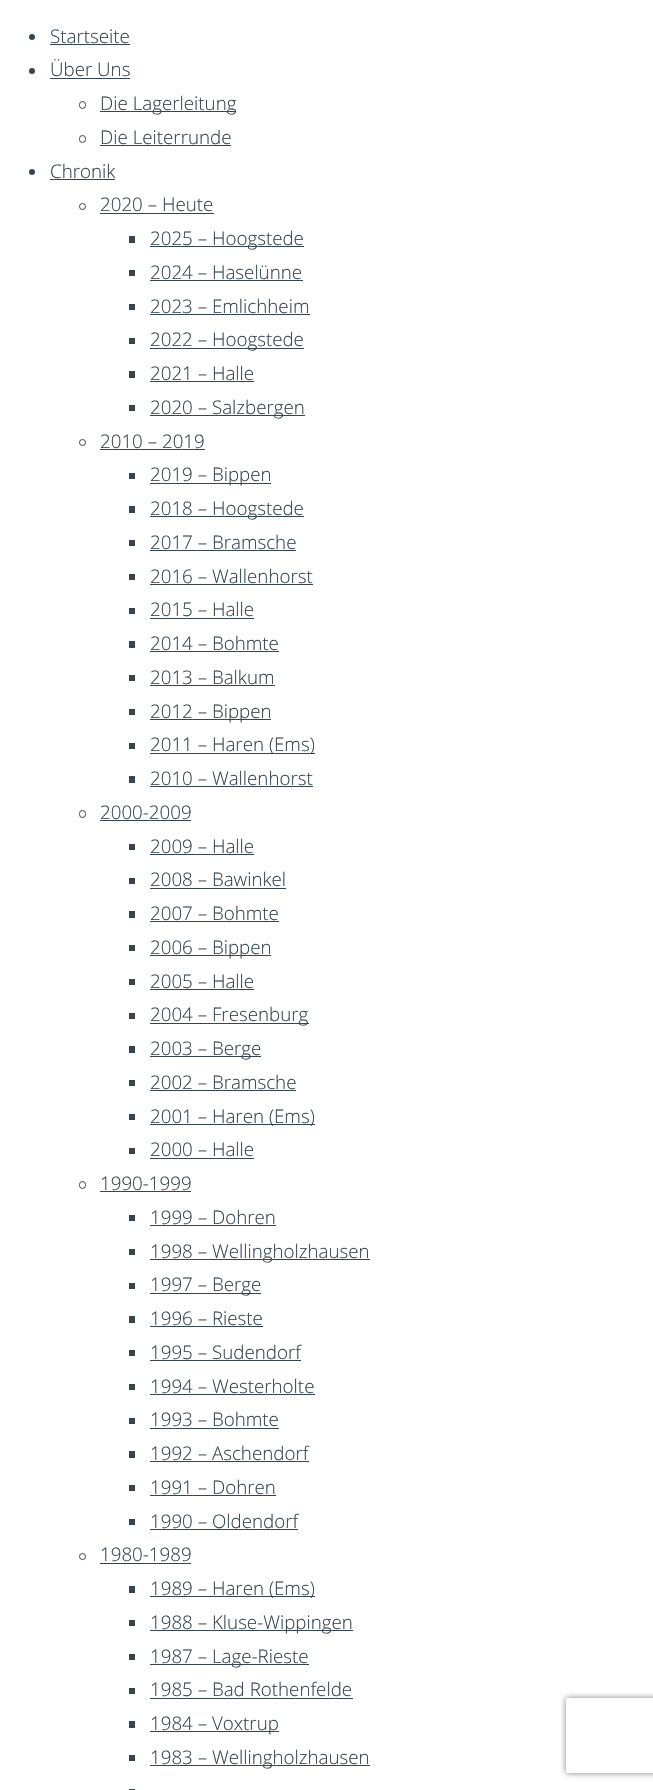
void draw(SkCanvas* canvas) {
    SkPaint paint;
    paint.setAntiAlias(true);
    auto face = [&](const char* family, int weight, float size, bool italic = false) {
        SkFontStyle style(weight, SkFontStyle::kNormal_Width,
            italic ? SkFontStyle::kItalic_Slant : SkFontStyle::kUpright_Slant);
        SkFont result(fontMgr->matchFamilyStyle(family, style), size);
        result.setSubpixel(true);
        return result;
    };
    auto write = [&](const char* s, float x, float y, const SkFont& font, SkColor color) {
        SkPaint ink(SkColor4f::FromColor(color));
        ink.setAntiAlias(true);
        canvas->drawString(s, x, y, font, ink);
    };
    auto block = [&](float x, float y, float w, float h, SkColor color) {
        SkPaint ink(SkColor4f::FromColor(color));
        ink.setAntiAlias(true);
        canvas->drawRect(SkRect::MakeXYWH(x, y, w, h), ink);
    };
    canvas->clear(SK_ColorWHITE);
    paint.setColor(SkColorSetRGB(53, 69, 82));
    canvas->drawCircle(32, 37, 3, paint);
    auto kFont1 = face("Open Sans", 300, 18.75f);
    write("Startseite", 50, 43, kFont1, SkColorSetRGB(53, 69, 82));
    block(50, 44, 80, 1, SkColorSetRGB(53, 69, 82));
    canvas->drawCircle(32, 71, 3, paint);
    write("Über Uns", 50, 76, kFont1, SkColorSetRGB(53, 69, 82));
    block(50, 78, 80, 1, SkColorSetRGB(53, 69, 82));
    paint.setStyle(SkPaint::kStroke_Style);
    paint.setStrokeWidth(1);
    canvas->drawRoundRect(SkRect::MakeXYWH(79.5f, 101.5f, 6, 7), 3, 3, paint);
    block(100, 111, 136, 1, SkColorSetRGB(53, 69, 82));
    write("Die Lagerleitung", 100, 110, kFont1, SkColorSetRGB(53, 69, 82));
    canvas->drawRoundRect(SkRect::MakeXYWH(79.5f, 135.5f, 6, 7), 3, 3, paint);
    write("Die Leiterrunde", 100, 144, kFont1, SkColorSetRGB(53, 69, 82));
    block(100, 145, 131, 1, SkColorSetRGB(53, 69, 82));
    paint.setStyle(SkPaint::kFill_Style);
    canvas->drawCircle(32, 172, 3, paint);
    write("Chronik", 50, 178, kFont1, SkColorSetRGB(53, 69, 82));
    block(50, 179, 65, 1, SkColorSetRGB(53, 69, 82));
    paint.setStyle(SkPaint::kStroke_Style);
    canvas->drawCircle(82.5f, 206.5f, 3, paint);
    write("2020 – Heute", 100, 211, kFont1, SkColorSetRGB(53, 69, 82));
    block(100, 213, 114, 1, SkColorSetRGB(53, 69, 82));
    block(129, 236, 6, 7, SkColorSetRGB(53, 69, 82));
    block(150, 246, 154, 1, SkColorSetRGB(53, 69, 82));
    write("2025 – Hoogstede", 150, 245, kFont1, SkColorSetRGB(53, 69, 82));
    block(129, 270, 6, 6, SkColorSetRGB(53, 69, 82));
    write("2024 – Haselünne", 150, 279, kFont1, SkColorSetRGB(53, 69, 82));
    block(150, 280, 153, 1, SkColorSetRGB(53, 69, 82));
    block(129, 304, 6, 6, SkColorSetRGB(53, 69, 82));
    write("2023 – Emlichheim", 150, 313, kFont1, SkColorSetRGB(53, 69, 82));
    block(150, 314, 160, 1, SkColorSetRGB(53, 69, 82));
    block(129, 338, 6, 6, SkColorSetRGB(53, 69, 82));
    block(150, 348, 154, 1, SkColorSetRGB(53, 69, 82));
    write("2022 – Hoogstede", 150, 346, kFont1, SkColorSetRGB(53, 69, 82));
    block(129, 371, 6, 7, SkColorSetRGB(53, 69, 82));
    write("2021 – Halle", 150, 380, kFont1, SkColorSetRGB(53, 69, 82));
    block(150, 381, 104, 1, SkColorSetRGB(53, 69, 82));
    block(129, 405, 6, 6, SkColorSetRGB(53, 69, 82));
    block(150, 415, 155, 1, SkColorSetRGB(53, 69, 82));
    write("2020 – Salzbergen", 150, 414, kFont1, SkColorSetRGB(53, 69, 82));
    canvas->drawCircle(82.5f, 442.5f, 3, paint);
    write("2010 – 2019", 100, 448, kFont1, SkColorSetRGB(53, 69, 82));
    block(100, 449, 105, 1, SkColorSetRGB(53, 69, 82));
    block(129, 473, 6, 6, SkColorSetRGB(53, 69, 82));
    block(150, 483, 121, 1, SkColorSetRGB(53, 69, 82));
    write("2019 – Bippen", 150, 481, kFont1, SkColorSetRGB(53, 69, 82));
    block(129, 506, 6, 7, SkColorSetRGB(53, 69, 82));
    block(150, 516, 154, 1, SkColorSetRGB(53, 69, 82));
    write("2018 – Hoogstede", 150, 515, kFont1, SkColorSetRGB(53, 69, 82));
    block(129, 540, 6, 6, SkColorSetRGB(53, 69, 82));
    write("2017 – Bramsche", 150, 549, kFont1, SkColorSetRGB(53, 69, 82));
    block(150, 550, 146, 1, SkColorSetRGB(53, 69, 82));
    block(129, 574, 6, 6, SkColorSetRGB(53, 69, 82));
    write("2016 – Wallenhorst", 150, 583, kFont1, SkColorSetRGB(53, 69, 82));
    block(150, 584, 163, 1, SkColorSetRGB(53, 69, 82));
    block(129, 608, 6, 6, SkColorSetRGB(53, 69, 82));
    write("2015 – Halle", 150, 616, kFont1, SkColorSetRGB(53, 69, 82));
    block(150, 618, 104, 1, SkColorSetRGB(53, 69, 82));
    block(129, 641, 6, 7, SkColorSetRGB(53, 69, 82));
    write("2014 – Bohmte", 150, 650, kFont1, SkColorSetRGB(53, 69, 82));
    block(150, 651, 129, 1, SkColorSetRGB(53, 69, 82));
    block(129, 675, 6, 6, SkColorSetRGB(53, 69, 82));
    write("2013 – Balkum", 150, 684, kFont1, SkColorSetRGB(53, 69, 82));
    block(150, 685, 125, 1, SkColorSetRGB(53, 69, 82));
    block(129, 709, 6, 6, SkColorSetRGB(53, 69, 82));
    block(150, 719, 121, 1, SkColorSetRGB(53, 69, 82));
    write("2012 – Bippen", 150, 718, kFont1, SkColorSetRGB(53, 69, 82));
    block(129, 743, 6, 6, SkColorSetRGB(53, 69, 82));
    block(150, 753, 165, 1, SkColorSetRGB(53, 69, 82));
    write("2011 – Haren (Ems)", 150, 751, kFont1, SkColorSetRGB(53, 69, 82));
    block(129, 776, 6, 7, SkColorSetRGB(53, 69, 82));
    write("2010 – Wallenhorst", 150, 785, kFont1, SkColorSetRGB(53, 69, 82));
    block(150, 786, 163, 1, SkColorSetRGB(53, 69, 82));
    canvas->drawRoundRect(SkRect::MakeXYWH(79.5f, 810.5f, 6, 7), 3, 3, paint);
    write("2000-2009", 100, 819, kFont1, SkColorSetRGB(53, 69, 82));
    block(100, 820, 91, 1, SkColorSetRGB(53, 69, 82));
    block(129, 844, 6, 6, SkColorSetRGB(53, 69, 82));
    write("2009 – Halle", 150, 853, kFont1, SkColorSetRGB(53, 69, 82));
    block(150, 854, 104, 1, SkColorSetRGB(53, 69, 82));
    block(129, 878, 6, 6, SkColorSetRGB(53, 69, 82));
    write("2008 – Bawinkel", 150, 886, kFont1, SkColorSetRGB(53, 69, 82));
    block(150, 888, 136, 1, SkColorSetRGB(53, 69, 82));
    block(129, 911, 6, 7, SkColorSetRGB(53, 69, 82));
    write("2007 – Bohmte", 150, 920, kFont1, SkColorSetRGB(53, 69, 82));
    block(150, 921, 129, 1, SkColorSetRGB(53, 69, 82));
    block(129, 945, 6, 6, SkColorSetRGB(53, 69, 82));
    block(150, 955, 121, 1, SkColorSetRGB(53, 69, 82));
    write("2006 – Bippen", 150, 954, kFont1, SkColorSetRGB(53, 69, 82));
    block(129, 979, 6, 6, SkColorSetRGB(53, 69, 82));
    write("2005 – Halle", 150, 988, kFont1, SkColorSetRGB(53, 69, 82));
    block(150, 989, 104, 1, SkColorSetRGB(53, 69, 82));
    block(129, 1013, 6, 6, SkColorSetRGB(53, 69, 82));
    block(150, 1023, 159, 1, SkColorSetRGB(53, 69, 82));
    write("2004 – Fresenburg", 150, 1021, kFont1, SkColorSetRGB(53, 69, 82));
    block(129, 1046, 6, 7, SkColorSetRGB(53, 69, 82));
    block(150, 1056, 111, 1, SkColorSetRGB(53, 69, 82));
    write("2003 – Berge", 150, 1055, kFont1, SkColorSetRGB(53, 69, 82));
    block(129, 1080, 6, 6, SkColorSetRGB(53, 69, 82));
    write("2002 – Bramsche", 150, 1089, kFont1, SkColorSetRGB(53, 69, 82));
    block(150, 1090, 146, 1, SkColorSetRGB(53, 69, 82));
    block(129, 1114, 6, 6, SkColorSetRGB(53, 69, 82));
    block(150, 1124, 165, 1, SkColorSetRGB(53, 69, 82));
    write("2001 – Haren (Ems)", 150, 1123, kFont1, SkColorSetRGB(53, 69, 82));
    block(129, 1148, 6, 6, SkColorSetRGB(53, 69, 82));
    write("2000 – Halle", 150, 1156, kFont1, SkColorSetRGB(53, 69, 82));
    block(150, 1158, 104, 1, SkColorSetRGB(53, 69, 82));
    canvas->drawRoundRect(SkRect::MakeXYWH(79.5f, 1181.5f, 6, 7), 3, 3, paint);
    write("1990-1999", 100, 1190, kFont1, SkColorSetRGB(53, 69, 82));
    block(100, 1191, 91, 1, SkColorSetRGB(53, 69, 82));
    block(129, 1215, 6, 6, SkColorSetRGB(53, 69, 82));
    write("1999 – Dohren", 150, 1224, kFont1, SkColorSetRGB(53, 69, 82));
    block(150, 1225, 126, 1, SkColorSetRGB(53, 69, 82));
    block(129, 1249, 6, 6, SkColorSetRGB(53, 69, 82));
    block(150, 1259, 220, 1, SkColorSetRGB(53, 69, 82));
    write("1998 – Wellingholzhausen", 150, 1258, kFont1, SkColorSetRGB(53, 69, 82));
    block(129, 1283, 6, 6, SkColorSetRGB(53, 69, 82));
    block(150, 1293, 111, 1, SkColorSetRGB(53, 69, 82));
    write("1997 – Berge", 150, 1291, kFont1, SkColorSetRGB(53, 69, 82));
    block(129, 1316, 6, 7, SkColorSetRGB(53, 69, 82));
    write("1996 – Rieste", 150, 1325, kFont1, SkColorSetRGB(53, 69, 82));
    block(150, 1326, 113, 1, SkColorSetRGB(53, 69, 82));
    block(129, 1350, 6, 6, SkColorSetRGB(53, 69, 82));
    write("1995 – Sudendorf", 150, 1359, kFont1, SkColorSetRGB(53, 69, 82));
    block(150, 1360, 151, 1, SkColorSetRGB(53, 69, 82));
    block(129, 1384, 6, 6, SkColorSetRGB(53, 69, 82));
    write("1994 – Westerholte", 150, 1393, kFont1, SkColorSetRGB(53, 69, 82));
    block(150, 1394, 165, 1, SkColorSetRGB(53, 69, 82));
    block(129, 1418, 6, 6, SkColorSetRGB(53, 69, 82));
    write("1993 – Bohmte", 150, 1426, kFont1, SkColorSetRGB(53, 69, 82));
    block(150, 1428, 129, 1, SkColorSetRGB(53, 69, 82));
    block(129, 1451, 6, 7, SkColorSetRGB(53, 69, 82));
    write("1992 – Aschendorf", 150, 1460, kFont1, SkColorSetRGB(53, 69, 82));
    block(150, 1461, 159, 1, SkColorSetRGB(53, 69, 82));
    block(129, 1485, 6, 6, SkColorSetRGB(53, 69, 82));
    write("1991 – Dohren", 150, 1494, kFont1, SkColorSetRGB(53, 69, 82));
    block(150, 1495, 126, 1, SkColorSetRGB(53, 69, 82));
    block(129, 1519, 6, 6, SkColorSetRGB(53, 69, 82));
    write("1990 – Oldendorf", 150, 1528, kFont1, SkColorSetRGB(53, 69, 82));
    block(150, 1529, 148, 1, SkColorSetRGB(53, 69, 82));
    canvas->drawCircle(82.5f, 1556.5f, 3, paint);
    write("1980-1989", 100, 1561, kFont1, SkColorSetRGB(53, 69, 82));
    block(100, 1563, 91, 1, SkColorSetRGB(53, 69, 82));
    block(129, 1586, 6, 7, SkColorSetRGB(53, 69, 82));
    block(150, 1596, 165, 1, SkColorSetRGB(53, 69, 82));
    write("1989 – Haren (Ems)", 150, 1595, kFont1, SkColorSetRGB(53, 69, 82));
    block(129, 1620, 6, 6, SkColorSetRGB(53, 69, 82));
    block(150, 1630, 203, 1, SkColorSetRGB(53, 69, 82));
    write("1988 – Kluse-Wippingen", 150, 1629, kFont1, SkColorSetRGB(53, 69, 82));
    block(129, 1654, 6, 6, SkColorSetRGB(53, 69, 82));
    block(150, 1664, 159, 1, SkColorSetRGB(53, 69, 82));
    write("1987 – Lage-Rieste", 150, 1663, kFont1, SkColorSetRGB(53, 69, 82));
    block(129, 1688, 6, 6, SkColorSetRGB(53, 69, 82));
    write("1985 – Bad Rothenfelde", 150, 1696, kFont1, SkColorSetRGB(53, 69, 82));
    block(150, 1698, 203, 1, SkColorSetRGB(53, 69, 82));
    block(129, 1721, 6, 7, SkColorSetRGB(53, 69, 82));
    block(150, 1731, 129, 1, SkColorSetRGB(53, 69, 82));
    write("1984 – Voxtrup", 150, 1730, kFont1, SkColorSetRGB(53, 69, 82));
    block(129, 1755, 6, 6, SkColorSetRGB(53, 69, 82));
    block(150, 1765, 220, 1, SkColorSetRGB(53, 69, 82));
    write("1983 – Wellingholzhausen", 150, 1764, kFont1, SkColorSetRGB(53, 69, 82));
    block(129, 1789, 6, 1, SkColorSetRGB(53, 69, 82));
    canvas->save();
    canvas->clipPath(SkPathBuilder(SkPathFillType::kEvenOdd).moveTo(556, 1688).lineTo(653, 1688).lineTo(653, 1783).lineTo(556, 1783).close().moveTo(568.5f, 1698).lineTo(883.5f, 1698).cubicTo(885, 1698, 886, 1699, 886, 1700.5f).lineTo(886, 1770.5f).cubicTo(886, 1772, 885, 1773, 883.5f, 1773).lineTo(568.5f, 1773).cubicTo(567, 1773, 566, 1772, 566, 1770.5f).lineTo(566, 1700.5f).cubicTo(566, 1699, 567, 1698, 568.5f, 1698).close().detach(), true);
    paint.setStyle(SkPaint::kFill_Style);
    paint.setColor(SkColorSetRGB(128, 128, 128));
    paint.setMaskFilter(SkMaskFilter::MakeBlur(kNormal_SkBlurStyle, 3));
    canvas->drawRoundRect(SkRect::MakeXYWH(566, 1698, 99, 75), 2.5f, 2.5f, paint);
    paint.setMaskFilter(nullptr);
    canvas->restore();
}
